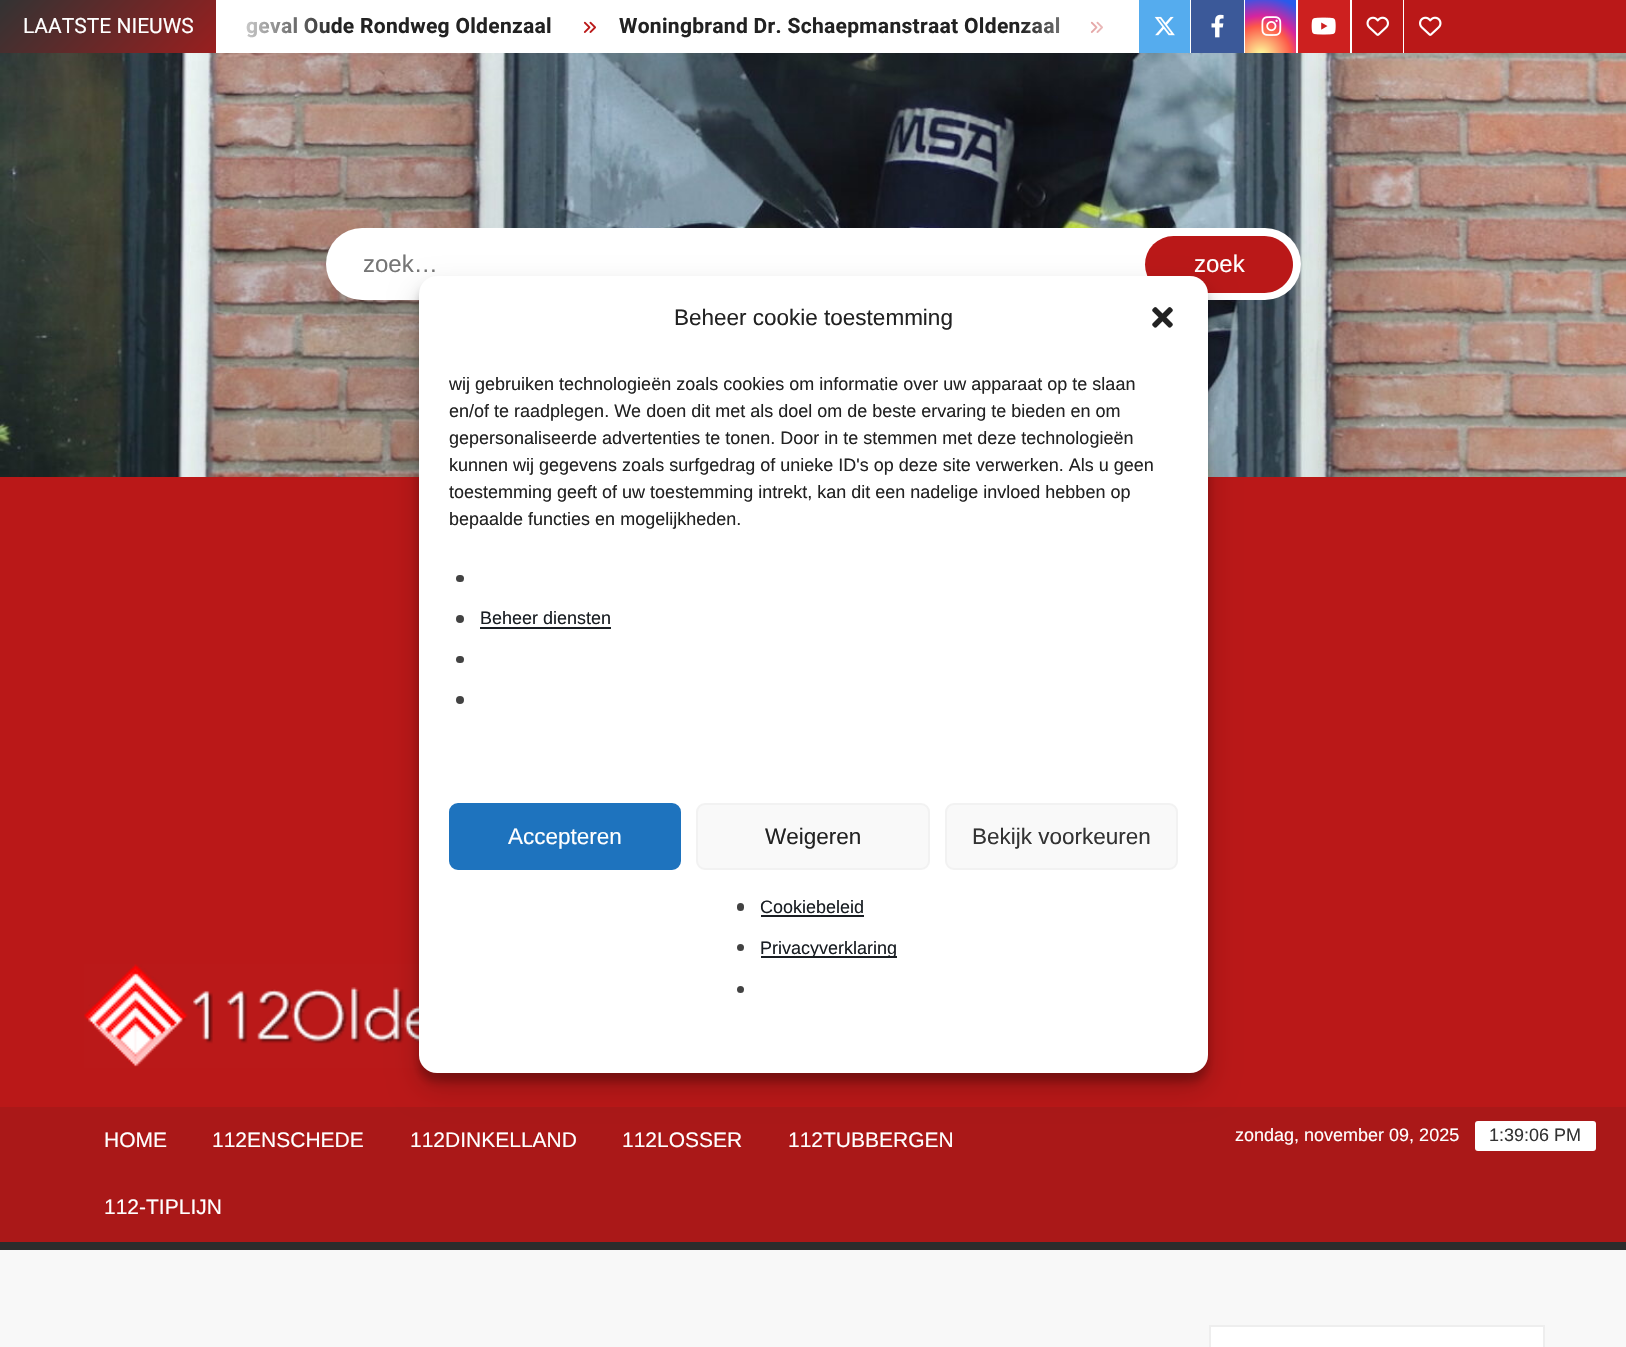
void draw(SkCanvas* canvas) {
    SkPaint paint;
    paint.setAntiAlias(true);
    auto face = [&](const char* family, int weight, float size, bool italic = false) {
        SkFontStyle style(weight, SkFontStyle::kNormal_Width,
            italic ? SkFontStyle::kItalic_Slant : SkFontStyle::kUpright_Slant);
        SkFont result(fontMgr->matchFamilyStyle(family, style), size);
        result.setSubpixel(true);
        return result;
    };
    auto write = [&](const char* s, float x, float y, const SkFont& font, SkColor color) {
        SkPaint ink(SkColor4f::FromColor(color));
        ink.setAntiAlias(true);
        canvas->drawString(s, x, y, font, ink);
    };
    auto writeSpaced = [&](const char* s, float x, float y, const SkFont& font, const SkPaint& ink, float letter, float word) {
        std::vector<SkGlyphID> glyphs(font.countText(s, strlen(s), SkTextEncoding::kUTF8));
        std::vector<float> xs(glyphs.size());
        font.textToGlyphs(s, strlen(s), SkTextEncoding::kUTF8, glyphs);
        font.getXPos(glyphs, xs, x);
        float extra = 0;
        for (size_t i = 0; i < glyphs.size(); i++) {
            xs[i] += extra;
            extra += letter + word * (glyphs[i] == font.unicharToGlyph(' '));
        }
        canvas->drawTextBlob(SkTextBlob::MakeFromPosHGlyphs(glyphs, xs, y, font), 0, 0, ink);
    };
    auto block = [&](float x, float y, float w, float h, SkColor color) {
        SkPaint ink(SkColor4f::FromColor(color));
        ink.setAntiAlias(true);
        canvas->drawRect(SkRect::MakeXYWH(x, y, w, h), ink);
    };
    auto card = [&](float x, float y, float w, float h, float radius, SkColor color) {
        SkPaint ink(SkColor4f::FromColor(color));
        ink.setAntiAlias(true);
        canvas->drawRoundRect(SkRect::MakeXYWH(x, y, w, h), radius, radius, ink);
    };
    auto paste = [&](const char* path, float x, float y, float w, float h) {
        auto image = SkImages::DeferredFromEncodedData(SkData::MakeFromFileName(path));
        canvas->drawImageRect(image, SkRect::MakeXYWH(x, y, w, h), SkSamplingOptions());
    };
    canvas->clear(SkColorSetRGB(248, 248, 248));
    block(217, 0, 921, 53, SK_ColorWHITE);
    {
        const SkColor colors[] = {SkColorSetRGB(186, 24, 24), SkColorSetRGB(238, 238, 238), SkColorSetRGB(186, 24, 24), SkColorSetRGB(51, 51, 51)};
        const float stops[] = {0, 0.33f, 0.67f, 1};
        const SkPoint ends[] = {{701, 374}, {164, -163}};
        paint.setShader(SkGradientShader::MakeLinear(ends, colors, stops, 4, SkTileMode::kClamp));
        paint.setAlpha(255);
    }
    canvas->drawRect(SkRect::MakeXYWH(0, 0, 216, 53), paint);
    auto kFont1 = face("Heebo", 400, 21);
    write("LAATSTE NIEUWS", 23, 33, kFont1, SK_ColorWHITE);
    auto kFont2 = face("Heebo", 700, 21);
    paint.setShader(nullptr);
    paint.setColor(SkColorSetRGB(34, 34, 34));
    writeSpaced("geval Oude Rondweg Oldenzaal", 246, 33, kFont2, paint, 0.3f, 0);
    {
        const SkColor colors[] = {SK_ColorWHITE, SkColorSetARGB(0, 255, 255, 255)};
        const float stops[] = {0, 1};
        const SkPoint ends[] = {{216, 26}, {336, 26}};
        paint.setShader(SkGradientShader::MakeLinear(ends, colors, stops, 2, SkTileMode::kClamp));
        paint.setAlpha(255);
    }
    canvas->drawRect(SkRect::MakeXYWH(216, 0, 117, 53), paint);
    paste("pic1.png", 583, 21, 13, 12);
    paint.setShader(nullptr);
    paint.setColor(SkColorSetRGB(34, 34, 34));
    writeSpaced("Woningbrand Dr. Schaepmanstraat Oldenzaal", 619, 33, kFont2, paint, 0.3f, 0);
    paste("pic1.png", 1090, 21, 13, 12);
    {
        const SkColor colors[] = {SkColorSetARGB(0, 255, 255, 255), SK_ColorWHITE};
        const float stops[] = {0, 1};
        const SkPoint ends[] = {{1019, 26}, {1139, 26}};
        paint.setShader(SkGradientShader::MakeLinear(ends, colors, stops, 2, SkTileMode::kClamp));
        paint.setAlpha(255);
    }
    canvas->drawRect(SkRect::MakeXYWH(1022, 0, 117, 53), paint);
    block(1352, 0, 274, 53, SkColorSetRGB(186, 24, 24));
    block(1139, 0, 51, 53, SkColorSetRGB(85, 172, 238));
    paste("pic2.png", 1154, 16, 21, 20);
    block(1190, 0, 1, 53, SK_ColorWHITE);
    block(1191, 0, 53, 53, SkColorSetRGB(59, 89, 153));
    paste("pic3.png", 1211, 14, 13, 24);
    block(1244, 0, 1, 53, SK_ColorWHITE);
    {
        const SkColor colors[] = {SkColorSetRGB(253, 244, 151), SkColorSetRGB(253, 244, 151), SkColorSetRGB(253, 89, 73), SkColorSetRGB(214, 36, 159), SkColorSetRGB(40, 90, 235)};
        const float stops[] = {0, 0.05f, 0.45f, 0.6f, 0.9f};
        paint.setShader(SkGradientShader::MakeRadial({1261, 56}, 67, colors, stops, 5, SkTileMode::kClamp));
        paint.setAlpha(255);
    }
    canvas->drawRect(SkRect::MakeXYWH(1245, 0, 51, 53), paint);
    paste("pic4.png", 1261, 16, 21, 20);
    block(1296, 0, 2, 53, SK_ColorWHITE);
    block(1298, 0, 52, 53, SkColorSetRGB(205, 32, 31));
    paste("pic5.png", 1311, 17, 25, 18);
    block(1350, 0, 2, 53, SK_ColorWHITE);
    paste("pic6.png", 1366, 16, 23, 20);
    block(1403, 0, 1, 53, SK_ColorWHITE);
    paste("pic7.png", 1419, 16, 23, 20);
    paste("pic8.png", 0, 53, 1626, 424);
    card(326, 228, 975, 72, 36, SK_ColorWHITE);
    auto kFont3 = face("Arimo", 400, 24);
    write("zoek…", 363, 272, kFont3, SkColorSetRGB(117, 117, 117));
    canvas->save();
    canvas->clipPath(SkPathBuilder().moveTo(361.5f, 236).lineTo(1264.5f, 236).cubicTo(1280, 236, 1293, 249, 1293, 264.5f).cubicTo(1293, 280, 1280, 293, 1264.5f, 293).lineTo(361.5f, 293).cubicTo(346, 293, 333, 280, 333, 264.5f).cubicTo(333, 249, 346, 236, 361.5f, 236).close().detach(), true);
    card(1145, 236, 150, 57, 28.5f, SkColorSetRGB(186, 24, 24));
    canvas->restore();
    write("zoek", 1194, 272, kFont3, SK_ColorWHITE);
    block(0, 477, 1626, 630, SkColorSetRGB(186, 24, 24));
    paste("pic9.png", 84, 964, 335, 104);
    block(0, 1107, 1626, 135, SkColorSetRGB(170, 24, 24));
    block(0, 1242, 1626, 8, SkColorSetRGB(44, 44, 44));
    auto kFont4 = face("Arimo", 400, 21);
    write("HOME", 104, 1147, kFont4, SK_ColorWHITE);
    write("112ENSCHEDE", 212, 1147, kFont4, SK_ColorWHITE);
    write("112DINKELLAND", 410, 1147, kFont4, SK_ColorWHITE);
    write("112LOSSER", 622, 1147, kFont4, SK_ColorWHITE);
    write("112TUBBERGEN", 788, 1147, kFont4, SK_ColorWHITE);
    write("112-TIPLIJN", 104, 1214, kFont4, SK_ColorWHITE);
    auto kFont5 = face("Arimo", 400, 18);
    write("zondag, november 09, 2025", 1235, 1141, kFont5, SK_ColorWHITE);
    card(1475, 1121, 121, 30, 3, SK_ColorWHITE);
    write("1:39:06 PM", 1489, 1141, kFont5, SkColorSetRGB(51, 51, 51));
    paint.setShader(nullptr);
    paint.setColor(SK_ColorWHITE);
    canvas->drawRect(SkRect::MakeXYWH(1210, 1326, 334, 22), paint);
    paint.setStyle(SkPaint::kStroke_Style);
    paint.setStrokeWidth(2);
    paint.setColor(SkColorSetRGB(238, 238, 238));
    canvas->drawRect(SkRect::MakeXYWH(1210, 1326, 334, 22), paint);
    paint.setStyle(SkPaint::kFill_Style);
    paint.setColor(SkColorSetARGB(59, 0, 0, 0));
    paint.setMaskFilter(SkMaskFilter::MakeBlur(kNormal_SkBlurStyle, 4.5f));
    canvas->drawRoundRect(SkRect::MakeXYWH(419, 285, 789, 797), 18, 18, paint);
    paint.setMaskFilter(nullptr);
    paint.setColor(SkColorSetARGB(48, 0, 0, 0));
    paint.setMaskFilter(SkMaskFilter::MakeBlur(kNormal_SkBlurStyle, 15));
    canvas->drawRoundRect(SkRect::MakeXYWH(419, 291, 789, 797), 18, 18, paint);
    paint.setMaskFilter(nullptr);
    card(419, 276, 789, 797, 18, SK_ColorWHITE);
    auto kFont6 = face("Arimo", 400, 22.5f);
    write("Beheer cookie toestemming", 674, 325, kFont6, SkColorSetRGB(34, 34, 34));
    paste("pic10.png", 1152, 307, 21, 21);
    write("wij gebruiken technologieën zoals cookies om informatie over uw apparaat op te slaan", 449, 390, kFont5, SkColorSetRGB(34, 34, 34));
    write("en/of te raadplegen. We doen dit met als doel om de beste ervaring te bieden en om", 449, 417, kFont5, SkColorSetRGB(34, 34, 34));
    write("gepersonaliseerde advertenties te tonen. Door in te stemmen met deze technologieën", 449, 444, kFont5, SkColorSetRGB(34, 34, 34));
    write("kunnen wij gegevens zoals surfgedrag of unieke ID's op deze site verwerken. Als u geen", 449, 471, kFont5, SkColorSetRGB(34, 34, 34));
    write("toestemming geeft of uw toestemming intrekt, kan dit een nadelige invloed hebben op", 449, 498, kFont5, SkColorSetRGB(34, 34, 34));
    write("bepaalde functies en mogelijkheden.", 449, 525, kFont5, SkColorSetRGB(34, 34, 34));
    card(456, 575, 8, 7, 3.5f, SkColorSetRGB(66, 66, 66));
    paint.setColor(SkColorSetRGB(66, 66, 66));
    canvas->drawCircle(460, 619, 4, paint);
    write("Beheer diensten", 480, 624, kFont5, SkColorSetRGB(25, 30, 35));
    block(480, 627, 131, 2, SkColorSetRGB(25, 30, 35));
    card(456, 656, 8, 7, 3.5f, SkColorSetRGB(66, 66, 66));
    canvas->drawCircle(460, 700, 4, paint);
    paint.setColor(SkColorSetRGB(30, 115, 190));
    canvas->drawRoundRect(SkRect::MakeXYWH(450, 804, 230, 65), 8, 8, paint);
    paint.setStyle(SkPaint::kStroke_Style);
    canvas->drawRoundRect(SkRect::MakeXYWH(450, 804, 230, 65), 8, 8, paint);
    write("Accepteren", 508, 844, kFont6, SK_ColorWHITE);
    paint.setStyle(SkPaint::kFill_Style);
    paint.setColor(SkColorSetRGB(249, 249, 249));
    canvas->drawRoundRect(SkRect::MakeXYWH(697, 804, 232, 65), 8, 8, paint);
    paint.setStyle(SkPaint::kStroke_Style);
    paint.setColor(SkColorSetRGB(242, 242, 242));
    canvas->drawRoundRect(SkRect::MakeXYWH(697, 804, 232, 65), 8, 8, paint);
    write("Weigeren", 765, 844, kFont6, SkColorSetRGB(34, 34, 34));
    paint.setStyle(SkPaint::kFill_Style);
    paint.setColor(SkColorSetRGB(249, 249, 249));
    canvas->drawRoundRect(SkRect::MakeXYWH(946, 804, 231, 65), 8, 8, paint);
    paint.setStyle(SkPaint::kStroke_Style);
    paint.setColor(SkColorSetRGB(242, 242, 242));
    canvas->drawRoundRect(SkRect::MakeXYWH(946, 804, 231, 65), 8, 8, paint);
    write("Bekijk voorkeuren", 972, 844, kFont6, SkColorSetRGB(51, 51, 51));
    card(737, 903, 7, 8, 3.5f, SkColorSetRGB(66, 66, 66));
    write("Cookiebeleid", 760, 913, kFont5, SkColorSetRGB(25, 30, 35));
    block(761, 915, 103, 2, SkColorSetRGB(25, 30, 35));
    paint.setStyle(SkPaint::kFill_Style);
    paint.setColor(SkColorSetRGB(66, 66, 66));
    canvas->drawCircle(740.5f, 947.5f, 3.5f, paint);
    block(761, 956, 136, 2, SkColorSetRGB(25, 30, 35));
    write("Privacyverklaring", 760, 954, kFont5, SkColorSetRGB(25, 30, 35));
    canvas->drawCircle(740.5f, 989.5f, 3.5f, paint);
}
